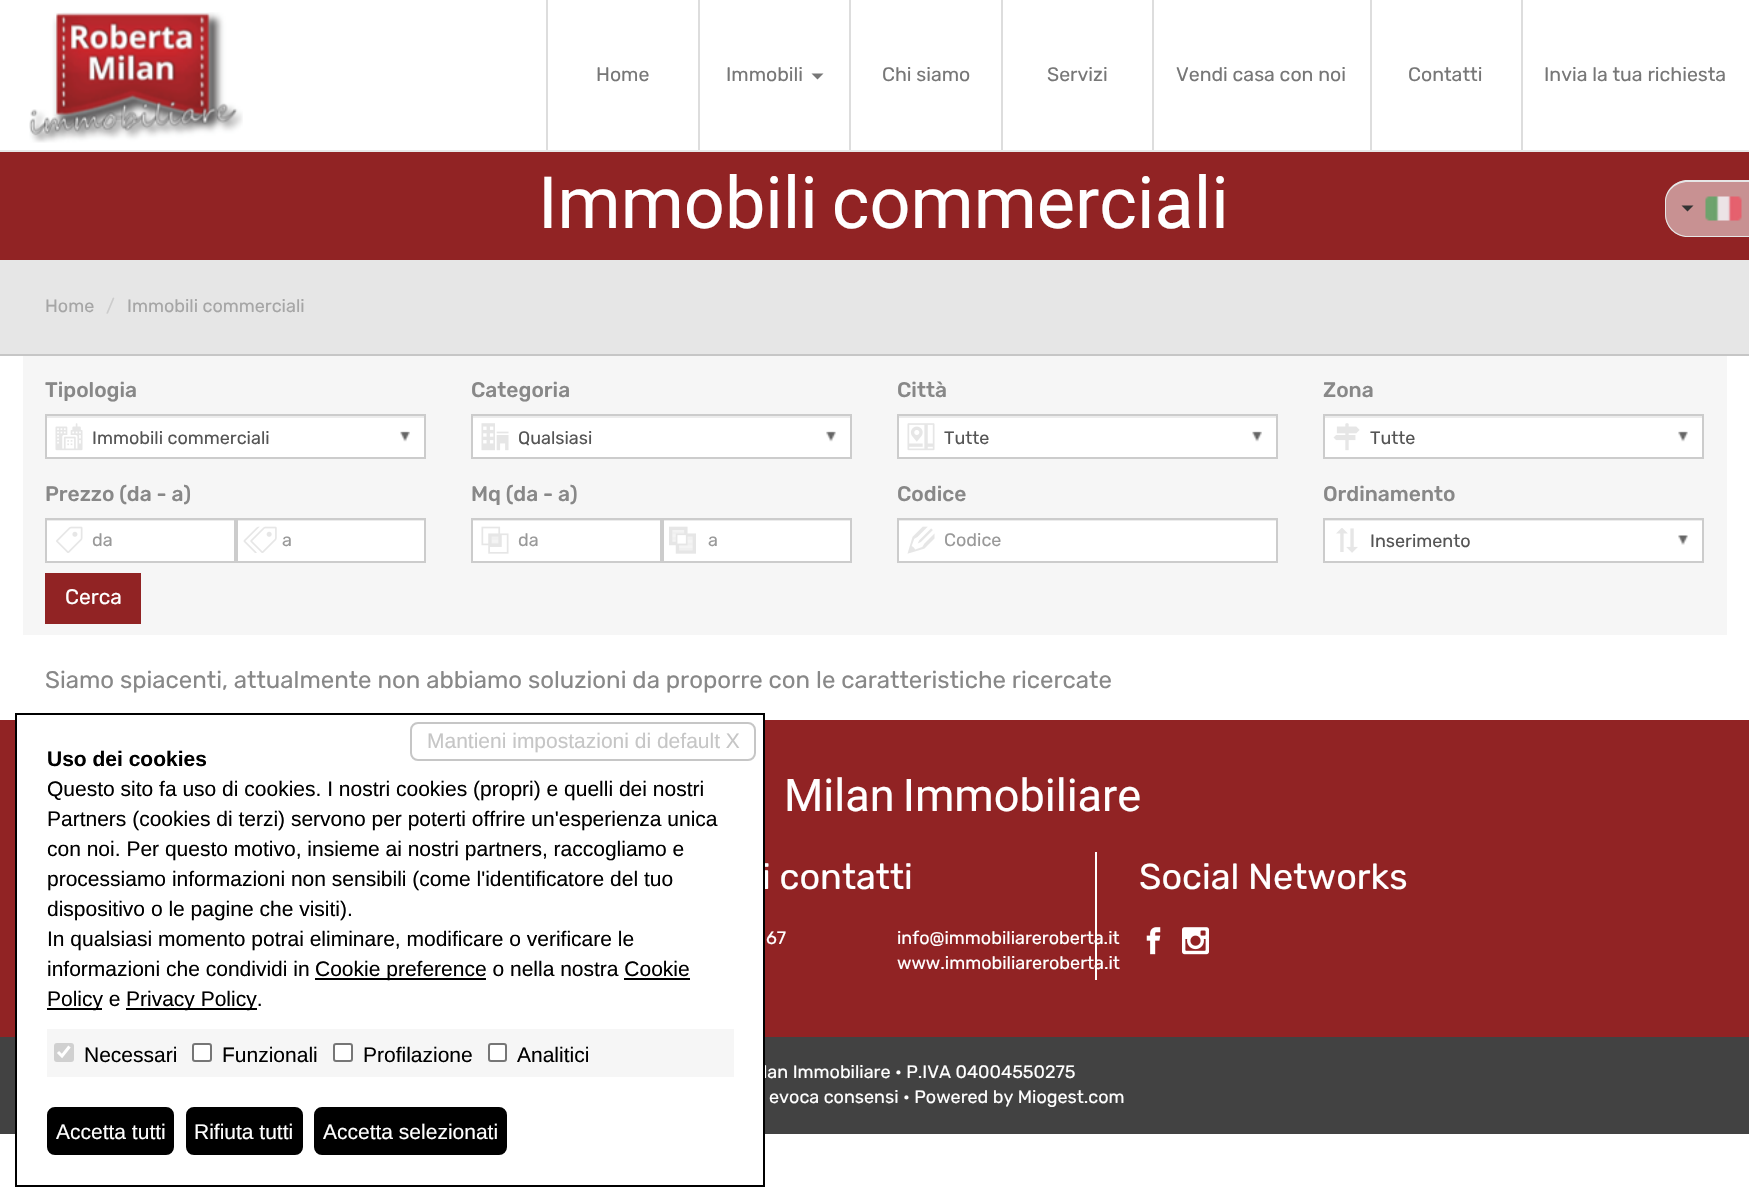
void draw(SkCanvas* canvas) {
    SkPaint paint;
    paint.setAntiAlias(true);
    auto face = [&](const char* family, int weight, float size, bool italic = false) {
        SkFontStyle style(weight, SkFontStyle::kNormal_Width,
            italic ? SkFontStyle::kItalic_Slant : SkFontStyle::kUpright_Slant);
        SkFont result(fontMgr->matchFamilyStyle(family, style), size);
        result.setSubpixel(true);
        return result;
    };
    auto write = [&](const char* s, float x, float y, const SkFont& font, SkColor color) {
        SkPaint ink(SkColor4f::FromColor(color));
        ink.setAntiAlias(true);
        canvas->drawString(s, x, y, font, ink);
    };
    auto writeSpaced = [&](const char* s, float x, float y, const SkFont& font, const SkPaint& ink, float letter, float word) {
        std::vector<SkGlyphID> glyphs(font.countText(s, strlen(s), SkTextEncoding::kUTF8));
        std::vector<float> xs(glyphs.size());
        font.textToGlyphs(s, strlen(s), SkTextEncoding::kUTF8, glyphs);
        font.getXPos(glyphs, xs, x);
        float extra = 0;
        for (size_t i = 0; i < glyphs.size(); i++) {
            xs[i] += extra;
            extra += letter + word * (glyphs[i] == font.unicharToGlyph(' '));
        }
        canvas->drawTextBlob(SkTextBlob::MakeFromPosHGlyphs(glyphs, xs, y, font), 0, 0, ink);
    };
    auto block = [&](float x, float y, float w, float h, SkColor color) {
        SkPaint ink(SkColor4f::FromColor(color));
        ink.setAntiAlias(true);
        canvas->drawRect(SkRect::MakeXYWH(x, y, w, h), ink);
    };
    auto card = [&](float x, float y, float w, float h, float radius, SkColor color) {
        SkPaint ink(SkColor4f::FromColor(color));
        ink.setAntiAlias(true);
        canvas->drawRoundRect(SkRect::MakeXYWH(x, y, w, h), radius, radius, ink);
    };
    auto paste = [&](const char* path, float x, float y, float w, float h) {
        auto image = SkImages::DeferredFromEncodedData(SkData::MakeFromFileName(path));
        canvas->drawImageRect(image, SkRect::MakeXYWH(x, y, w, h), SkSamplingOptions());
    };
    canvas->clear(SK_ColorWHITE);
    block(0, 150, 1749, 2, SkColorSetRGB(231, 231, 231));
    paste("pic1.png", 29, 12, 214, 131);
    block(546, 0, 2, 150, SkColorSetRGB(221, 221, 221));
    auto kFont1 = face("Rubik", 400, 19.5f);
    write("Home", 596, 81, kFont1, SkColorSetRGB(119, 119, 119));
    block(698, 0, 2, 150, SkColorSetRGB(221, 221, 221));
    write("Immobili", 726, 81, kFont1, SkColorSetRGB(119, 119, 119));
    paint.setColor(SkColorSetRGB(119, 119, 119));
    canvas->drawPath(SkPathBuilder().moveTo(811.5f, 73.5f).lineTo(823.5f, 73.5f).lineTo(817.5f, 79.5f).close().detach(), paint);
    block(849, 0, 2, 150, SkColorSetRGB(221, 221, 221));
    write("Chi siamo", 882, 81, kFont1, SkColorSetRGB(119, 119, 119));
    block(1001, 0, 2, 150, SkColorSetRGB(221, 221, 221));
    write("Servizi", 1047, 81, kFont1, SkColorSetRGB(119, 119, 119));
    block(1152, 0, 2, 150, SkColorSetRGB(221, 221, 221));
    write("Vendi casa con noi", 1176, 81, kFont1, SkColorSetRGB(119, 119, 119));
    block(1370, 0, 2, 150, SkColorSetRGB(221, 221, 221));
    write("Contatti", 1408, 81, kFont1, SkColorSetRGB(119, 119, 119));
    block(1521, 0, 2, 150, SkColorSetRGB(221, 221, 221));
    write("Invia la tua richiesta", 1544, 81, kFont1, SkColorSetRGB(119, 119, 119));
    block(0, 152, 1749, 108, SkColorSetRGB(145, 35, 36));
    auto kFont2 = face("Roboto", 400, 72);
    paint.setColor(SK_ColorWHITE);
    writeSpaced("Immobili commerciali", 538, 228, kFont2, paint, 0, -4);
    paint.setColor(SkColorSetRGB(200, 145, 146));
    canvas->drawPath(SkPathBuilder().moveTo(1688, 180).lineTo(1749, 180).lineTo(1749, 237).lineTo(1688, 237).cubicTo(1675.5f, 237, 1665, 226.5f, 1665, 214).lineTo(1665, 203).cubicTo(1665, 190.5f, 1675.5f, 180, 1688, 180).close().detach(), paint);
    paint.setColor(SkColorSetRGB(230, 230, 230));
    canvas->drawPath(SkPathBuilder(SkPathFillType::kEvenOdd).moveTo(1688, 180).lineTo(1749, 180).lineTo(1749, 237).lineTo(1688, 237).cubicTo(1675, 237, 1665, 227, 1665, 214).lineTo(1665, 202).cubicTo(1665, 190, 1675, 180, 1688, 180).close().moveTo(1688, 182).lineTo(1749, 182).lineTo(1749, 236).lineTo(1688, 236).cubicTo(1676, 236, 1666, 226, 1666, 214).lineTo(1666, 202).cubicTo(1666, 191, 1676, 182, 1688, 182).close().detach(), paint);
    paint.setColor(SkColorSetRGB(51, 51, 51));
    canvas->drawPath(SkPathBuilder().moveTo(1681.5f, 205.5f).lineTo(1687.5f, 211.5f).lineTo(1693.5f, 205.5f).close().detach(), paint);
    paste("pic2.png", 1705, 196, 37, 25);
    block(0, 260, 1749, 94, SkColorSetRGB(230, 230, 230));
    block(0, 354, 1749, 2, SkColorSetRGB(198, 198, 198));
    auto kFont3 = face("Rubik", 400, 18);
    write("Home", 45, 312, kFont3, SkColorSetRGB(166, 166, 166));
    write("/", 106, 312, kFont3, SkColorSetRGB(204, 204, 204));
    write("Immobili commerciali", 127, 312, kFont3, SkColorSetRGB(166, 166, 166));
    block(23, 356, 1704, 279, SkColorSetRGB(246, 246, 246));
    auto kFont4 = face("Rubik", 500, 21);
    write("Tipologia", 45, 397, kFont4, SkColorSetRGB(136, 136, 136));
    block(47, 418, 377, 39, SK_ColorWHITE);
    paste("pic4.png", 400, 431, 10, 11);
    block(47, 416, 378, 2, SkColorSetRGB(236, 236, 236));
    paint.setStyle(SkPaint::kStroke_Style);
    paint.setStrokeWidth(2);
    paint.setColor(SkColorSetRGB(204, 204, 204));
    canvas->drawRect(SkRect::MakeXYWH(46, 415, 379, 43), paint);
    paste("pic3.png", 55, 423, 28, 28);
    write("Immobili commerciali", 92, 444, kFont3, SkColorSetRGB(85, 85, 85));
    write("Categoria", 471, 397, kFont4, SkColorSetRGB(136, 136, 136));
    block(473, 418, 377, 39, SK_ColorWHITE);
    paste("pic6.png", 826, 431, 10, 11);
    block(473, 416, 378, 2, SkColorSetRGB(236, 236, 236));
    canvas->drawRect(SkRect::MakeXYWH(472, 415, 379, 43), paint);
    paste("pic5.png", 481, 423, 28, 28);
    write("Qualsiasi", 518, 444, kFont3, SkColorSetRGB(85, 85, 85));
    write("Città", 897, 397, kFont4, SkColorSetRGB(136, 136, 136));
    block(899, 418, 377, 39, SK_ColorWHITE);
    paste("pic4.png", 1252, 431, 10, 11);
    block(899, 416, 378, 2, SkColorSetRGB(236, 236, 236));
    canvas->drawRect(SkRect::MakeXYWH(898, 415, 379, 43), paint);
    paste("pic7.png", 907, 423, 28, 28);
    write("Tutte", 944, 444, kFont3, SkColorSetRGB(85, 85, 85));
    write("Zona", 1323, 397, kFont4, SkColorSetRGB(136, 136, 136));
    block(1325, 418, 377, 39, SK_ColorWHITE);
    paste("pic6.png", 1678, 431, 10, 11);
    block(1325, 416, 378, 2, SkColorSetRGB(236, 236, 236));
    canvas->drawRect(SkRect::MakeXYWH(1324, 415, 379, 43), paint);
    paste("pic8.png", 1333, 423, 27, 28);
    write("Tutte", 1370, 444, kFont3, SkColorSetRGB(85, 85, 85));
    write("Prezzo (da - a)", 45, 501, kFont4, SkColorSetRGB(136, 136, 136));
    block(47, 521, 187, 40, SK_ColorWHITE);
    block(47, 520, 187, 1, SkColorSetRGB(236, 236, 236));
    canvas->drawRect(SkRect::MakeXYWH(46, 519, 189, 43), paint);
    paste("pic9.png", 56, 526, 27, 27);
    write("da", 92, 546, kFont3, SkColorSetRGB(153, 153, 153));
    block(238, 521, 186, 40, SK_ColorWHITE);
    block(237, 520, 188, 1, SkColorSetRGB(236, 236, 236));
    canvas->drawRect(SkRect::MakeXYWH(237, 519, 188, 43), paint);
    paste("pic10.png", 243, 526, 34, 27);
    write("a", 282, 546, kFont3, SkColorSetRGB(153, 153, 153));
    write("Mq (da - a)", 471, 501, kFont4, SkColorSetRGB(136, 136, 136));
    block(473, 521, 187, 40, SK_ColorWHITE);
    block(473, 520, 187, 1, SkColorSetRGB(236, 236, 236));
    canvas->drawRect(SkRect::MakeXYWH(472, 519, 189, 43), paint);
    paste("pic11.png", 481, 526, 28, 28);
    write("da", 518, 546, kFont3, SkColorSetRGB(153, 153, 153));
    block(664, 521, 186, 40, SK_ColorWHITE);
    block(663, 520, 188, 1, SkColorSetRGB(236, 236, 236));
    canvas->drawRect(SkRect::MakeXYWH(663, 519, 188, 43), paint);
    paste("pic12.png", 669, 526, 27, 28);
    write("a", 708, 546, kFont3, SkColorSetRGB(153, 153, 153));
    write("Codice", 897, 501, kFont4, SkColorSetRGB(136, 136, 136));
    block(899, 521, 377, 40, SK_ColorWHITE);
    block(899, 520, 378, 1, SkColorSetRGB(236, 236, 236));
    canvas->drawRect(SkRect::MakeXYWH(898, 519, 379, 43), paint);
    paste("pic13.png", 907, 526, 28, 28);
    write("Codice", 944, 546, kFont3, SkColorSetRGB(153, 153, 153));
    write("Ordinamento", 1323, 501, kFont4, SkColorSetRGB(136, 136, 136));
    block(1325, 521, 377, 40, SK_ColorWHITE);
    paste("pic15.png", 1678, 535, 10, 10);
    block(1325, 520, 378, 1, SkColorSetRGB(236, 236, 236));
    canvas->drawRect(SkRect::MakeXYWH(1324, 519, 379, 43), paint);
    paste("pic14.png", 1336, 528, 22, 25);
    write("Inserimento", 1370, 547, kFont3, SkColorSetRGB(85, 85, 85));
    block(45, 573, 96, 51, SkColorSetRGB(145, 35, 36));
    auto kFont5 = face("Rubik", 400, 21);
    write("Cerca", 65, 604, kFont5, SK_ColorWHITE);
    auto kFont6 = face("Rubik", 400, 24);
    write("Siamo spiacenti, attualmente non abbiamo soluzioni da proporre con le caratteristiche ricercate", 45, 688, kFont6, SkColorSetRGB(136, 136, 136));
    block(0, 720, 1749, 317, SkColorSetRGB(145, 35, 36));
    block(0, 1037, 1749, 97, SkColorSetRGB(66, 66, 66));
    block(17, 720, 746, 414, SK_ColorWHITE);
    auto kFont7 = face("Rubik", 400, 36);
    write("i contatti", 762, 889, kFont7, SK_ColorWHITE);
    write("lan Immobiliare • P.IVA 04004550275", 763, 1078, kFont3, SK_ColorWHITE);
    paint.setColor(SK_ColorBLACK);
    canvas->drawRect(SkRect::MakeXYWH(16, 714, 748, 472), paint);
    paint.setColor(SkColorSetRGB(198, 198, 198));
    canvas->drawRoundRect(SkRect::MakeXYWH(411, 723, 344, 37), 7, 7, paint);
    auto kFont8 = face("Liberation Sans", 400, 21);
    write("Mantieni impostazioni di default X", 427, 748, kFont8, SkColorSetRGB(198, 198, 198));
    auto kFont9 = face("Liberation Sans", 700, 21);
    write("Uso dei cookies", 47, 766, kFont9, SK_ColorBLACK);
    write("Questo sito fa uso di cookies. I nostri cookies (propri) e quelli dei nostri", 47, 796, kFont8, SK_ColorBLACK);
    write("Partners (cookies di terzi) servono per poterti offrire un'esperienza unica", 47, 826, kFont8, SK_ColorBLACK);
    write("con noi. Per questo motivo, insieme ai nostri partners, raccogliamo e", 47, 856, kFont8, SK_ColorBLACK);
    write("processiamo informazioni non sensibili (come l'identificatore del tuo", 47, 886, kFont8, SK_ColorBLACK);
    write("dispositivo o le pagine che visiti).", 47, 916, kFont8, SK_ColorBLACK);
    write("In qualsiasi momento potrai eliminare, modificare o verificare le", 47, 946, kFont8, SK_ColorBLACK);
    write("informazioni che condividi in", 47, 976, kFont8, SK_ColorBLACK);
    block(315, 978, 171, 2, SK_ColorBLACK);
    write("Cookie preference o nella nostra Cookie", 315, 976, kFont8, SK_ColorBLACK);
    block(47, 1008, 55, 2, SK_ColorBLACK);
    write("Policy e", 47, 1006, kFont8, SK_ColorBLACK);
    block(624, 978, 66, 2, SK_ColorBLACK);
    block(126, 1008, 131, 2, SK_ColorBLACK);
    write("Privacy Policy.", 126, 1006, kFont8, SK_ColorBLACK);
    block(47, 1029, 687, 48, SkColorSetRGB(246, 246, 246));
    card(54, 1043, 20, 19, 3, SkColorSetRGB(208, 208, 208));
    paint.setStrokeWidth(3.1f);
    paint.setColor(SK_ColorWHITE);
    canvas->drawPath(SkPathBuilder().moveTo(58, 1052).lineTo(62, 1056).lineTo(69.5f, 1046.5f).detach(), paint);
    write("Necessari", 84, 1062, kFont8, SK_ColorBLACK);
    paint.setStyle(SkPaint::kFill_Style);
    canvas->drawRoundRect(SkRect::MakeXYWH(193, 1044, 18, 17), 2, 2, paint);
    paint.setStyle(SkPaint::kStroke_Style);
    paint.setStrokeWidth(2);
    paint.setColor(SkColorSetRGB(118, 118, 118));
    canvas->drawRoundRect(SkRect::MakeXYWH(193, 1044, 18, 17), 2, 2, paint);
    write("Funzionali", 222, 1062, kFont8, SK_ColorBLACK);
    paint.setStyle(SkPaint::kFill_Style);
    paint.setColor(SK_ColorWHITE);
    canvas->drawRoundRect(SkRect::MakeXYWH(334, 1044, 18, 17), 2, 2, paint);
    paint.setStyle(SkPaint::kStroke_Style);
    paint.setColor(SkColorSetRGB(118, 118, 118));
    canvas->drawRoundRect(SkRect::MakeXYWH(334, 1044, 18, 17), 2, 2, paint);
    write("Profilazione", 363, 1062, kFont8, SK_ColorBLACK);
    paint.setStyle(SkPaint::kFill_Style);
    paint.setColor(SK_ColorWHITE);
    canvas->drawRoundRect(SkRect::MakeXYWH(489, 1044, 17, 17), 2, 2, paint);
    paint.setStyle(SkPaint::kStroke_Style);
    paint.setColor(SkColorSetRGB(118, 118, 118));
    canvas->drawRoundRect(SkRect::MakeXYWH(489, 1044, 17, 17), 2, 2, paint);
    write("Analitici", 517, 1062, kFont8, SK_ColorBLACK);
    paint.setStyle(SkPaint::kFill_Style);
    paint.setColor(SK_ColorBLACK);
    canvas->drawRoundRect(SkRect::MakeXYWH(48, 1108, 125, 46), 7, 7, paint);
    paint.setStyle(SkPaint::kStroke_Style);
    canvas->drawRoundRect(SkRect::MakeXYWH(48, 1108, 125, 46), 7, 7, paint);
    write("Accetta tutti", 56, 1139, kFont8, SK_ColorWHITE);
    paint.setStyle(SkPaint::kFill_Style);
    canvas->drawRoundRect(SkRect::MakeXYWH(187, 1108, 115, 46), 7, 7, paint);
    paint.setStyle(SkPaint::kStroke_Style);
    canvas->drawRoundRect(SkRect::MakeXYWH(187, 1108, 115, 46), 7, 7, paint);
    write("Rifiuta tutti", 194, 1139, kFont8, SK_ColorWHITE);
    paint.setStyle(SkPaint::kFill_Style);
    canvas->drawRoundRect(SkRect::MakeXYWH(315, 1108, 191, 46), 7, 7, paint);
    paint.setStyle(SkPaint::kStroke_Style);
    canvas->drawRoundRect(SkRect::MakeXYWH(315, 1108, 191, 46), 7, 7, paint);
    write("Accetta selezionati", 323, 1139, kFont8, SK_ColorWHITE);
    auto kFont10 = face("Roboto", 400, 45);
    paint.setStyle(SkPaint::kFill_Style);
    paint.setColor(SK_ColorWHITE);
    writeSpaced("Milan Immobiliare", 784, 811, kFont10, paint, 0, -3);
    write("67", 766, 944, kFont3, SK_ColorWHITE);
    write("info@immobiliareroberta.it", 897, 944, kFont3, SK_ColorWHITE);
    write("www.immobiliareroberta.it", 897, 969, kFont3, SK_ColorWHITE);
    block(1095, 852, 2, 128, SK_ColorWHITE);
    write("Social Networks", 1139, 889, kFont7, SK_ColorWHITE);
    paste("pic16.png", 1146, 927, 15, 28);
    paste("pic17.png", 1182, 927, 27, 28);
    write("evoca consensi • Powered by Miogest.com", 769, 1103, kFont3, SK_ColorWHITE);
}
